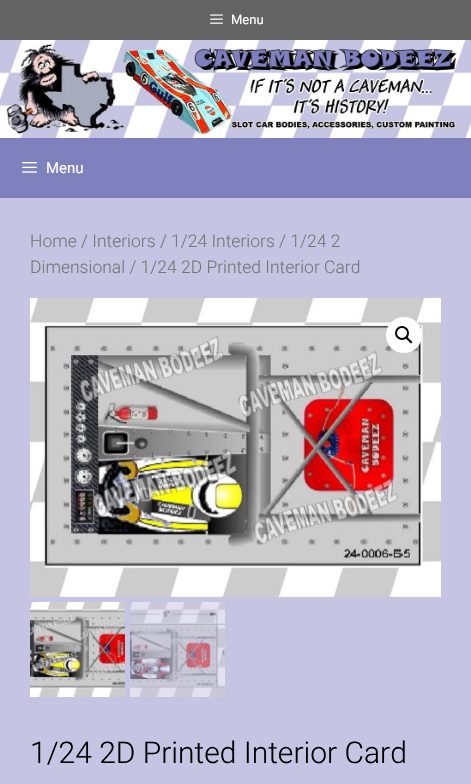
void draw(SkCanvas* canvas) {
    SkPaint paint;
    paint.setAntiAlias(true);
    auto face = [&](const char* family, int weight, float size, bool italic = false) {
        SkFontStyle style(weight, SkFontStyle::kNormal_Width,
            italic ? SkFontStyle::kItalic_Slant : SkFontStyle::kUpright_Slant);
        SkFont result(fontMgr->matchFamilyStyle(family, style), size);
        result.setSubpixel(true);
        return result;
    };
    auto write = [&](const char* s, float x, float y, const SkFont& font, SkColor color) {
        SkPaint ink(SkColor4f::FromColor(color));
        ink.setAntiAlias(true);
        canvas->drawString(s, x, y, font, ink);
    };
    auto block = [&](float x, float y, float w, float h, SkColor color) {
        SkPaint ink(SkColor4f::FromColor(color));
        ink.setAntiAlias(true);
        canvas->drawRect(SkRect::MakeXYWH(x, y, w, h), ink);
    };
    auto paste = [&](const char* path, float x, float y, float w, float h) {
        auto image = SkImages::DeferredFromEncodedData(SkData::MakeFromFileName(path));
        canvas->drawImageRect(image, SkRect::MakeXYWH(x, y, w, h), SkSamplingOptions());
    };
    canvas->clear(SkColorSetRGB(197, 196, 227));
    block(0, 0, 471, 40, SkColorSetRGB(99, 99, 99));
    paste("pic1.png", 210, 14, 13, 10);
    auto kFont1 = face("Roboto", 400, 13);
    write("Menu", 231, 24, kFont1, SK_ColorWHITE);
    paste("pic2.png", 0, 40, 471, 98);
    block(0, 138, 471, 60, SkColorSetRGB(127, 129, 190));
    paste("pic3.png", 22, 162, 15, 11);
    auto kFont2 = face("Roboto", 400, 15);
    write("Menu", 46, 173, kFont2, SK_ColorWHITE);
    auto kFont3 = face("Roboto", 300, 17.5f);
    write("Home / Interiors / 1/24 Interiors / 1/24 2", 30, 247, kFont3, SkColorSetRGB(118, 118, 118));
    write("Dimensional / 1/24 2D Printed Interior Card", 30, 273, kFont3, SkColorSetRGB(118, 118, 118));
    paste("pic4.png", 30, 298, 411, 299);
    paint.setColor(SK_ColorWHITE);
    canvas->drawCircle(404, 335, 18, paint);
    paint.setStyle(SkPaint::kStroke_Style);
    paint.setStrokeWidth(2);
    paint.setColor(SK_ColorBLACK);
    canvas->drawCircle(402, 333, 6, paint);
    paint.setStyle(SkPaint::kFill_Style);
    canvas->drawPath(SkPathBuilder().moveTo(406, 337.5f).cubicTo(407.5f, 336, 409, 339, 409.5f, 339.5f).cubicTo(410.5f, 340, 413, 342, 412, 343).cubicTo(410.5f, 344, 409, 341.5f, 408.5f, 341).cubicTo(407.5f, 340, 405, 338.5f, 406, 337.5f).close().detach(), paint);
    paste("pic5.png", 30, 602, 95, 95);
    paste("pic6.png", 130, 602, 95, 95);
    auto kFont4 = face("Roboto", 300, 30);
    write("1/24 2D Printed Interior Card", 30, 763, kFont4, SK_ColorBLACK);
}
